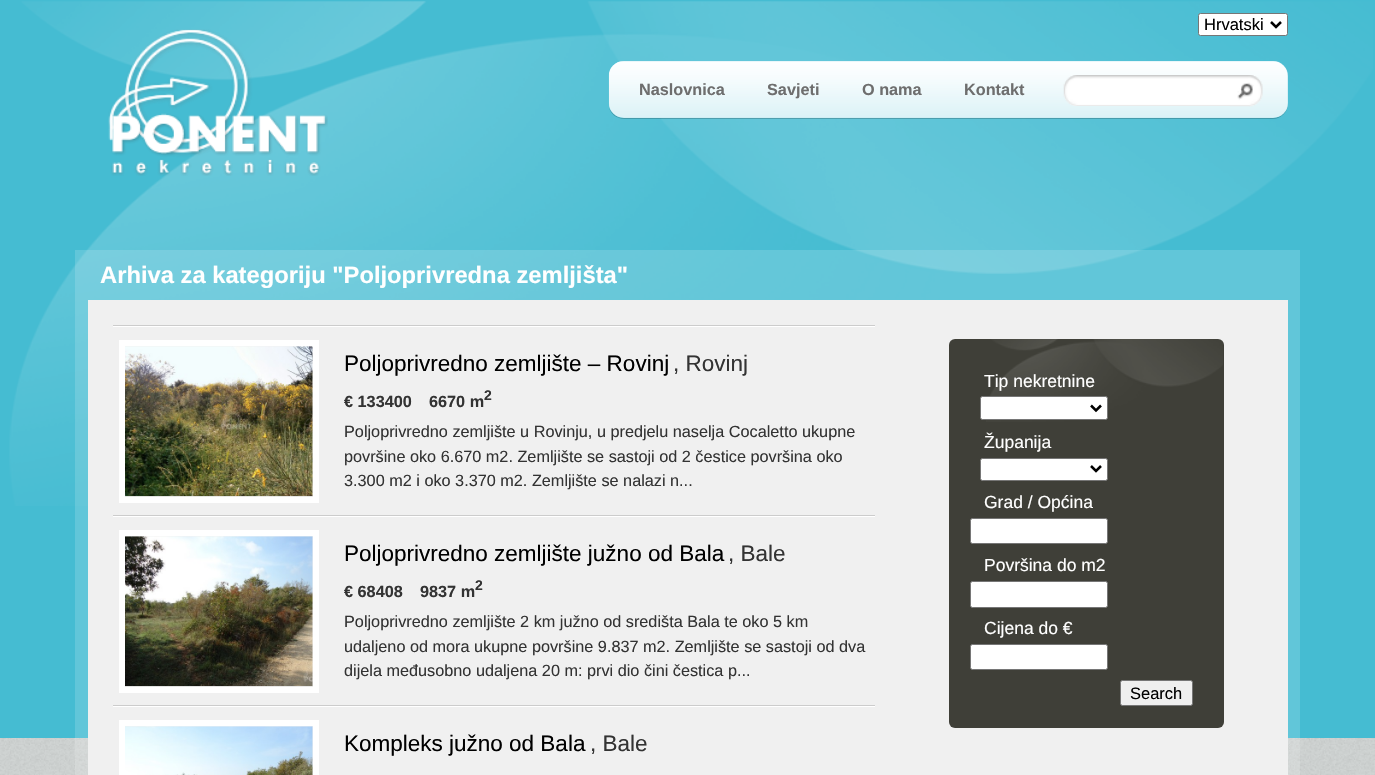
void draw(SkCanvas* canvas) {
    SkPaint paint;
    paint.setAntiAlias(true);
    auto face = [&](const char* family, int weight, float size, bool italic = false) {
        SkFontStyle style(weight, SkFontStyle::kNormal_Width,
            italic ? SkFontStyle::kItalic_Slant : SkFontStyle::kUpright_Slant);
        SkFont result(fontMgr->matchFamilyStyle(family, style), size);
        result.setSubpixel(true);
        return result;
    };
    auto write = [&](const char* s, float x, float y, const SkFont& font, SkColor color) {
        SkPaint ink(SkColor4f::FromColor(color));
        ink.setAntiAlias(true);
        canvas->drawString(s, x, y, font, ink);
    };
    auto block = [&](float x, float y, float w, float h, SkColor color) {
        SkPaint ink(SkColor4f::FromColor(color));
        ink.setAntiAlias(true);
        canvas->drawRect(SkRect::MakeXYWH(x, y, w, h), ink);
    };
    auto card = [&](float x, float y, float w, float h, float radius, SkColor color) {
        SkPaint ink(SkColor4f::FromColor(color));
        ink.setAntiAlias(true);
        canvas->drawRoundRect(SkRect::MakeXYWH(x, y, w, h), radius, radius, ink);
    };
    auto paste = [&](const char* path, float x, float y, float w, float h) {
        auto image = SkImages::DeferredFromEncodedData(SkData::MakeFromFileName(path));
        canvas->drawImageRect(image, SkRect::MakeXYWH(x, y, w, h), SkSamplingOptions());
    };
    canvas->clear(SK_ColorWHITE);
    paste("pic1.png", 0, 738, 1375, 37);
    block(0, 0, 1375, 738, SkColorSetRGB(69, 188, 210));
    paste("pic2.png", 9, 1, 1364, 505);
    paste("pic3.png", 108, 29, 220, 147);
    paint.setColor(SK_ColorWHITE);
    canvas->drawRoundRect(SkRect::MakeXYWH(1198.5f, 13.5f, 89, 22), 2, 2, paint);
    paint.setStyle(SkPaint::kStroke_Style);
    paint.setStrokeWidth(1);
    paint.setColor(SkColorSetRGB(118, 118, 118));
    canvas->drawRoundRect(SkRect::MakeXYWH(1198.5f, 13.5f, 89, 22), 2, 2, paint);
    paint.setStrokeWidth(2.5f);
    paint.setColor(SK_ColorBLACK);
    canvas->drawPath(SkPathBuilder().moveTo(1271, 22).lineTo(1276, 27).lineTo(1281, 22).detach(), paint);
    auto kFont1 = face("Liberation Sans", 400, 16.5f);
    write("Hrvatski", 1204, 30, kFont1, SK_ColorBLACK);
    paint.setStyle(SkPaint::kFill_Style);
    paint.setColor(SkColorSetARGB(51, 0, 0, 0));
    canvas->drawPath(SkPathBuilder().moveTo(609, 107).cubicTo(610, 114, 617, 119, 624, 119).lineTo(1273, 119).cubicTo(1281, 119, 1288, 112, 1288, 104).lineTo(1288, 78).lineTo(1287, 73).lineTo(1288, 103).cubicTo(1288, 111, 1281, 118, 1273, 118).lineTo(623, 118).cubicTo(617, 118, 611, 113, 609, 107).close().detach(), paint);
    card(609, 61, 679, 57, 15, SkColorSetRGB(208, 238, 244));
    paste("pic4.png", 608, 61, 680, 56);
    auto kFont2 = face("Liberation Sans", 700, 16.25f);
    write("Naslovnica", 639, 95, kFont2, SkColorSetRGB(110, 110, 110));
    write("Savjeti", 767, 95, kFont2, SkColorSetRGB(110, 110, 110));
    write("O nama", 862, 95, kFont2, SkColorSetRGB(110, 110, 110));
    write("Kontakt", 964, 95, kFont2, SkColorSetRGB(110, 110, 110));
    paste("pic5.png", 1063, 75, 167, 31);
    paste("pic6.png", 1230, 75, 33, 32);
    block(75, 250, 1225, 525, SkColorSetARGB(38, 255, 255, 255));
    auto kFont3 = face("Liberation Sans", 700, 23.75f);
    write("Arhiva za kategoriju \"Poljoprivredna zemljišta\"", 100, 283, kFont3, SK_ColorWHITE);
    block(88, 300, 1200, 475, SkColorSetRGB(240, 240, 240));
    block(113, 325, 762, 1, SkColorSetRGB(204, 204, 204));
    block(113, 326, 762, 1, SK_ColorWHITE);
    block(113, 515, 762, 1, SkColorSetRGB(204, 204, 204));
    paint.setStyle(SkPaint::kStroke_Style);
    paint.setStrokeWidth(6);
    paint.setColor(SK_ColorWHITE);
    canvas->drawRect(SkRect::MakeXYWH(122, 343, 194, 157), paint);
    paste("pic7.png", 125, 346, 188, 151);
    auto kFont4 = face("Liberation Sans", 400, 22.5f);
    write("Poljoprivredno zemljište – Rovinj", 344, 371, kFont4, SK_ColorBLACK);
    write(", Rovinj", 673, 371, kFont4, SkColorSetRGB(51, 51, 51));
    write("€ 133400", 344, 407, kFont2, SkColorSetRGB(51, 51, 51));
    write("6670 m", 429, 407, kFont2, SkColorSetRGB(51, 51, 51));
    auto kFont5 = face("Liberation Sans", 700, 14);
    write("2", 484, 400, kFont5, SkColorSetRGB(51, 51, 51));
    auto kFont6 = face("Liberation Sans", 400, 16.25f);
    write("Poljoprivredno zemljište u Rovinju, u predjelu naselja Cocaletto ukupne", 344, 437, kFont6, SkColorSetRGB(51, 51, 51));
    write("površine oko 6.670 m2. Zemljište se sastoji od 2 čestice površina oko", 344, 462, kFont6, SkColorSetRGB(51, 51, 51));
    write("3.300 m2 i oko 3.370 m2. Zemljište se nalazi n...", 344, 486, kFont6, SkColorSetRGB(51, 51, 51));
    block(113, 516, 762, 1, SK_ColorWHITE);
    block(113, 705, 762, 1, SkColorSetRGB(204, 204, 204));
    canvas->drawRect(SkRect::MakeXYWH(122, 533, 194, 157), paint);
    paste("pic8.png", 125, 536, 188, 151);
    write("Poljoprivredno zemljište južno od Bala", 344, 561, kFont4, SK_ColorBLACK);
    write(", Bale", 728, 561, kFont4, SkColorSetRGB(51, 51, 51));
    write("€ 68408", 344, 597, kFont2, SkColorSetRGB(51, 51, 51));
    write("9837 m", 420, 597, kFont2, SkColorSetRGB(51, 51, 51));
    write("2", 475, 590, kFont5, SkColorSetRGB(51, 51, 51));
    write("Poljoprivredno zemljište 2 km južno od središta Bala te oko 5 km", 344, 627, kFont6, SkColorSetRGB(51, 51, 51));
    write("udaljeno od mora ukupne površine 9.837 m2. Zemljište se sastoji od dva", 344, 652, kFont6, SkColorSetRGB(51, 51, 51));
    write("dijela međusobno udaljena 20 m: prvi dio čini čestica p...", 344, 676, kFont6, SkColorSetRGB(51, 51, 51));
    block(113, 706, 762, 1, SK_ColorWHITE);
    canvas->drawRect(SkRect::MakeXYWH(122, 723, 194, 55), paint);
    paste("pic9.png", 125, 726, 188, 49);
    write("Kompleks južno od Bala", 344, 751, kFont4, SK_ColorBLACK);
    write(", Bale", 590, 751, kFont4, SkColorSetRGB(51, 51, 51));
    card(949, 339, 275, 389, 6, SkColorSetRGB(63, 63, 56));
    paste("pic10.png", 986, 339, 237, 83);
    auto kFont7 = face("Liberation Sans", 400, 17.5f);
    write("Tip nekretnine", 984, 387, kFont7, SK_ColorWHITE);
    paint.setStyle(SkPaint::kFill_Style);
    canvas->drawRoundRect(SkRect::MakeXYWH(980.5f, 396.5f, 127, 23), 2, 2, paint);
    paint.setStyle(SkPaint::kStroke_Style);
    paint.setStrokeWidth(1);
    paint.setColor(SkColorSetRGB(118, 118, 118));
    canvas->drawRoundRect(SkRect::MakeXYWH(980.5f, 396.5f, 127, 23), 2, 2, paint);
    paint.setStrokeWidth(2.5f);
    paint.setColor(SK_ColorBLACK);
    canvas->drawPath(SkPathBuilder().moveTo(1091, 405.5f).lineTo(1096, 410.5f).lineTo(1101, 405.5f).detach(), paint);
    write("Županija", 984, 448, kFont7, SK_ColorWHITE);
    paint.setStyle(SkPaint::kFill_Style);
    paint.setColor(SK_ColorWHITE);
    canvas->drawRoundRect(SkRect::MakeXYWH(980.5f, 458.5f, 127, 22), 2, 2, paint);
    paint.setStyle(SkPaint::kStroke_Style);
    paint.setStrokeWidth(1);
    paint.setColor(SkColorSetRGB(118, 118, 118));
    canvas->drawRoundRect(SkRect::MakeXYWH(980.5f, 458.5f, 127, 22), 2, 2, paint);
    paint.setStrokeWidth(2.5f);
    paint.setColor(SK_ColorBLACK);
    canvas->drawPath(SkPathBuilder().moveTo(1091, 466).lineTo(1096, 471).lineTo(1101, 466).detach(), paint);
    write("Grad / Općina", 984, 508, kFont7, SK_ColorWHITE);
    paint.setStyle(SkPaint::kFill_Style);
    paint.setColor(SK_ColorWHITE);
    canvas->drawRoundRect(SkRect::MakeXYWH(970.5f, 518.5f, 137, 25), 2, 2, paint);
    paint.setStyle(SkPaint::kStroke_Style);
    paint.setStrokeWidth(1);
    paint.setColor(SkColorSetRGB(118, 118, 118));
    canvas->drawRoundRect(SkRect::MakeXYWH(970.5f, 518.5f, 137, 25), 2, 2, paint);
    write("Površina do m2", 984, 571, kFont7, SK_ColorWHITE);
    paint.setStyle(SkPaint::kFill_Style);
    paint.setColor(SK_ColorWHITE);
    canvas->drawRoundRect(SkRect::MakeXYWH(970.5f, 581.5f, 137, 26), 2, 2, paint);
    paint.setStyle(SkPaint::kStroke_Style);
    paint.setColor(SkColorSetRGB(118, 118, 118));
    canvas->drawRoundRect(SkRect::MakeXYWH(970.5f, 581.5f, 137, 26), 2, 2, paint);
    write("Cijena do €", 984, 634, kFont7, SK_ColorWHITE);
    paint.setStyle(SkPaint::kFill_Style);
    paint.setColor(SK_ColorWHITE);
    canvas->drawRoundRect(SkRect::MakeXYWH(970.5f, 644.5f, 137, 25), 2, 2, paint);
    paint.setStyle(SkPaint::kStroke_Style);
    paint.setColor(SkColorSetRGB(118, 118, 118));
    canvas->drawRoundRect(SkRect::MakeXYWH(970.5f, 644.5f, 137, 25), 2, 2, paint);
    paint.setStyle(SkPaint::kFill_Style);
    paint.setColor(SkColorSetRGB(239, 239, 239));
    canvas->drawRoundRect(SkRect::MakeXYWH(1120.5f, 680.5f, 72, 25), 2, 2, paint);
    paint.setStyle(SkPaint::kStroke_Style);
    paint.setColor(SkColorSetRGB(118, 118, 118));
    canvas->drawRoundRect(SkRect::MakeXYWH(1120.5f, 680.5f, 72, 25), 2, 2, paint);
    write("Search", 1130, 699, kFont1, SK_ColorBLACK);
}
